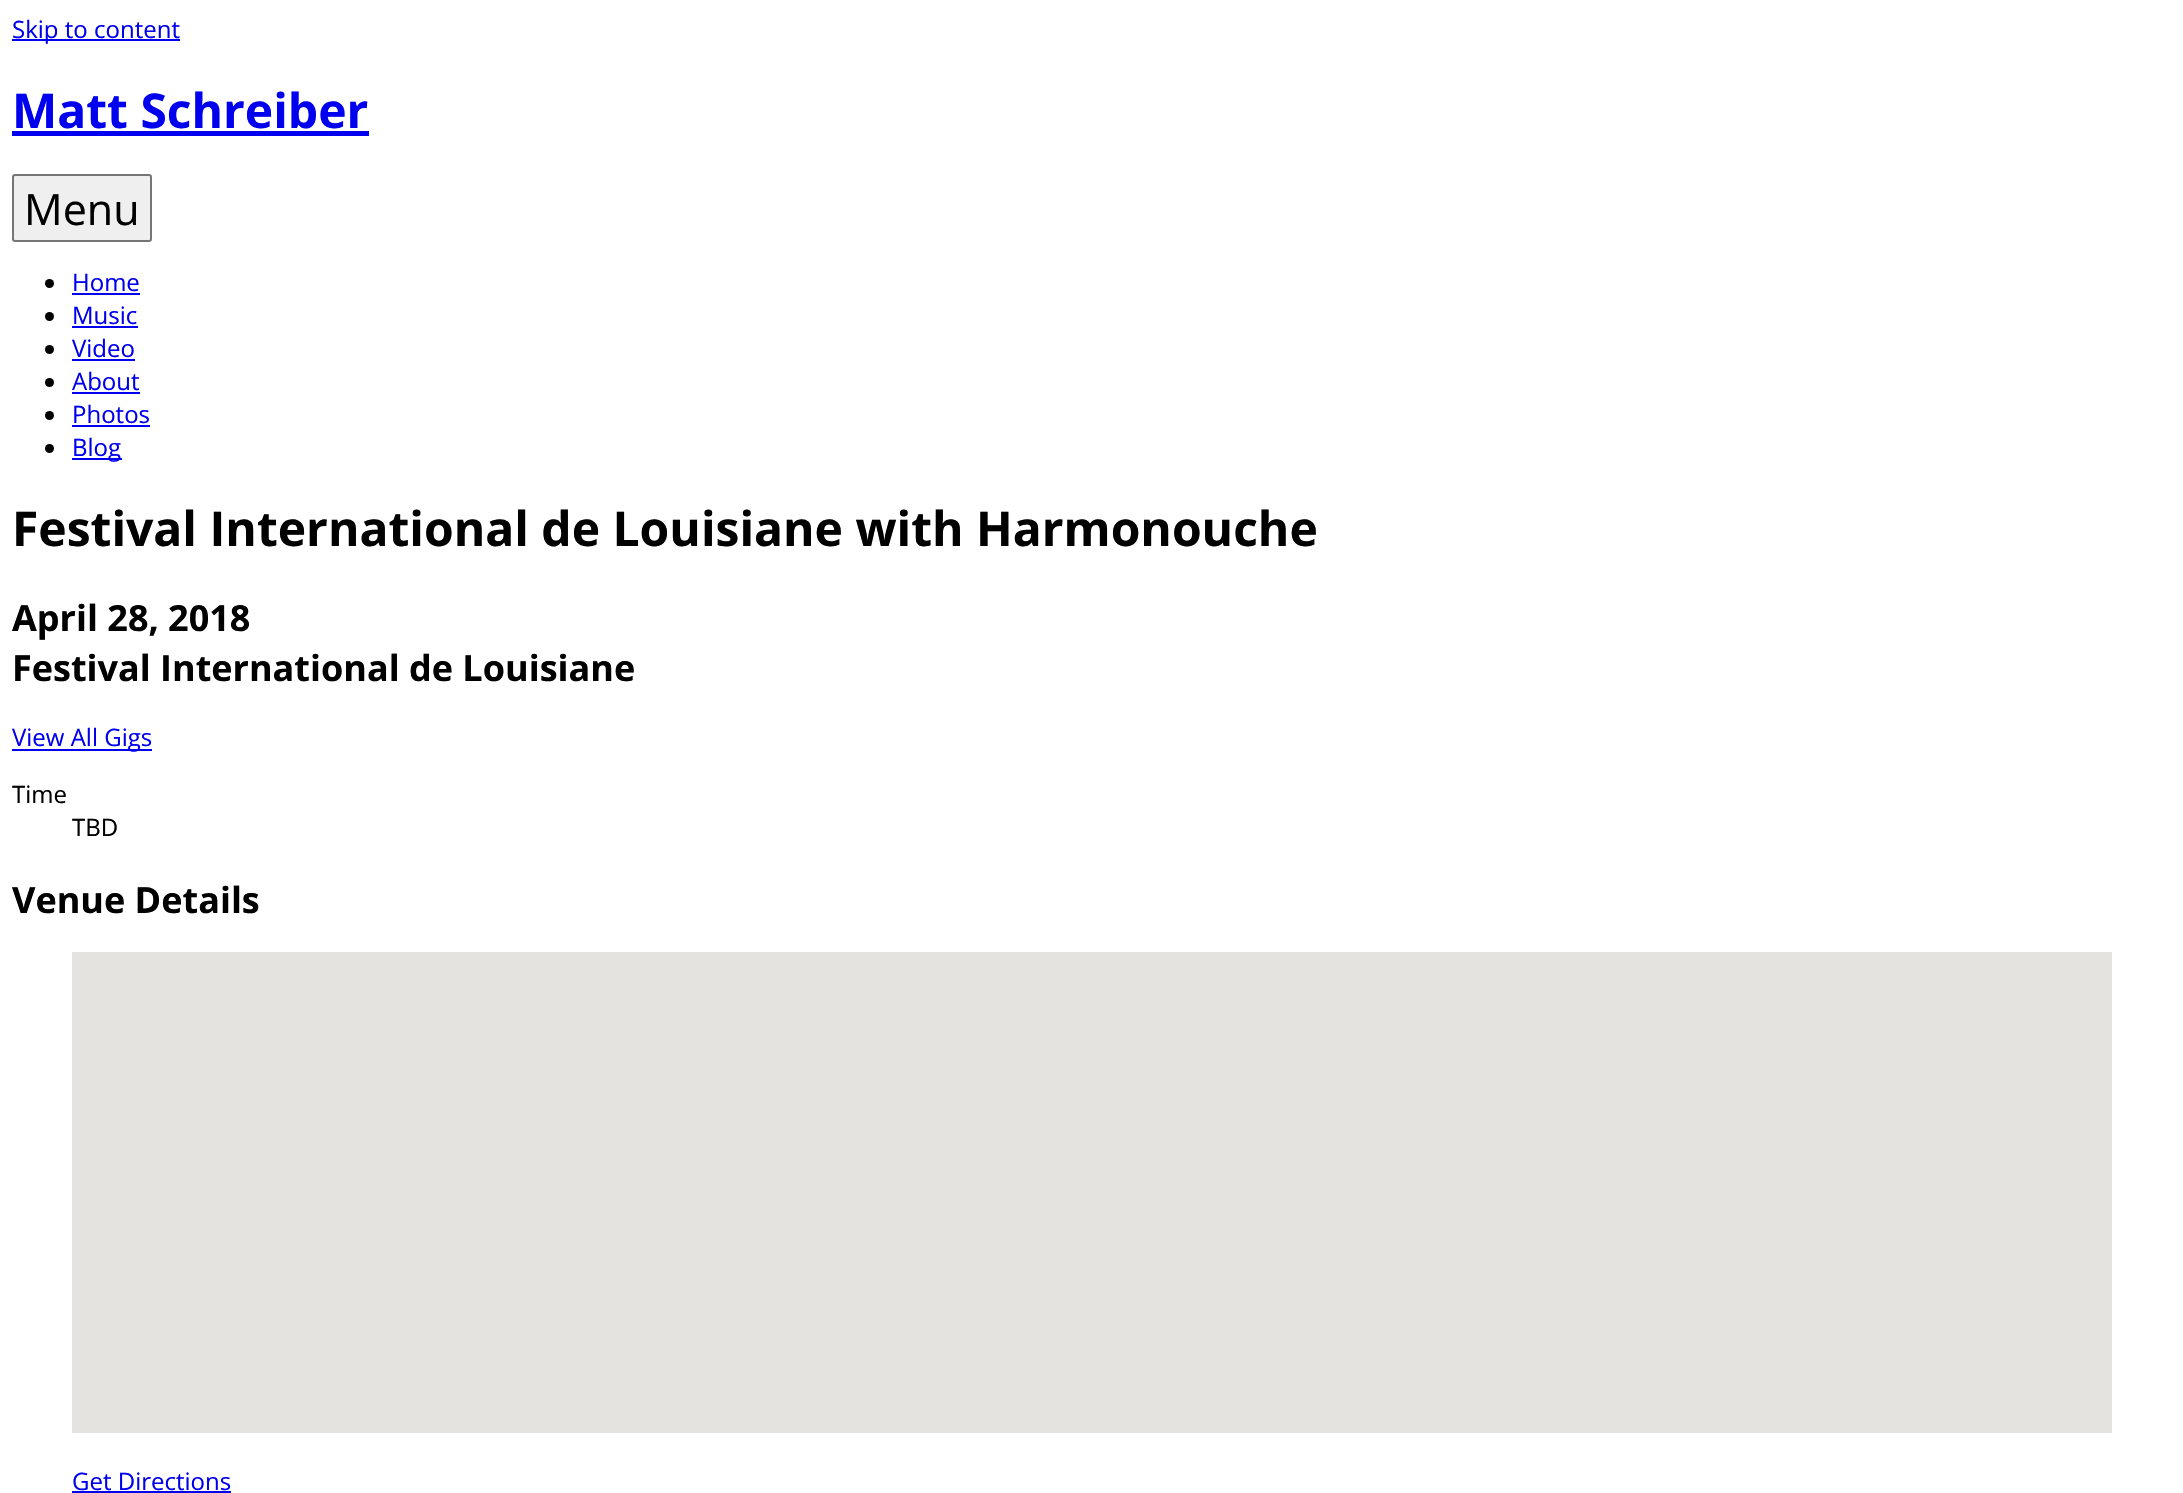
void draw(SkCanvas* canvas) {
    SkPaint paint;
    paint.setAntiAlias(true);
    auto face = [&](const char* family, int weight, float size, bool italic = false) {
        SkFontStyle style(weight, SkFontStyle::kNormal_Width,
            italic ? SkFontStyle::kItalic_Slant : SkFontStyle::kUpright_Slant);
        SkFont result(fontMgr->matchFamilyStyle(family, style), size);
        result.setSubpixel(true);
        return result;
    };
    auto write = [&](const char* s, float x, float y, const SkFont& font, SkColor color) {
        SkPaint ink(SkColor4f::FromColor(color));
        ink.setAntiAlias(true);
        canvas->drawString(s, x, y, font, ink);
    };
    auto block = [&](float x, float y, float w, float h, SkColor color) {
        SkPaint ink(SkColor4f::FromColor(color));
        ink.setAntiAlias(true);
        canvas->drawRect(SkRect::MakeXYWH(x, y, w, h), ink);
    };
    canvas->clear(SK_ColorWHITE);
    block(12, 39, 168, 2, SkColorSetRGB(0, 0, 238));
    auto kFont1 = face("Open Sans", 400, 24);
    write("Skip to content", 12, 38, kFont1, SkColorSetRGB(0, 0, 238));
    auto kFont2 = face("Open Sans", 700, 48);
    write("Matt Schreiber", 12, 128, kFont2, SkColorSetRGB(0, 0, 238));
    block(12, 131, 357, 5, SkColorSetRGB(0, 0, 238));
    paint.setColor(SkColorSetRGB(239, 239, 239));
    canvas->drawRoundRect(SkRect::MakeXYWH(13, 175, 138, 66), 2, 2, paint);
    paint.setStyle(SkPaint::kStroke_Style);
    paint.setStrokeWidth(2);
    paint.setColor(SkColorSetRGB(118, 118, 118));
    canvas->drawRoundRect(SkRect::MakeXYWH(13, 175, 138, 66), 2, 2, paint);
    auto kFont3 = face("Open Sans", 400, 43);
    write("Menu", 24, 225, kFont3, SK_ColorBLACK);
    paint.setStyle(SkPaint::kFill_Style);
    paint.setColor(SK_ColorBLACK);
    canvas->drawCircle(49.5f, 283.5f, 4.5f, paint);
    write("Home", 72, 291, kFont1, SkColorSetRGB(0, 0, 238));
    block(72, 293, 68, 2, SkColorSetRGB(0, 0, 238));
    canvas->drawCircle(49.5f, 316.5f, 4.5f, paint);
    write("Music", 72, 324, kFont1, SkColorSetRGB(0, 0, 238));
    block(72, 326, 66, 2, SkColorSetRGB(0, 0, 238));
    canvas->drawCircle(49.5f, 349.5f, 4.5f, paint);
    write("Video", 72, 357, kFont1, SkColorSetRGB(0, 0, 238));
    block(72, 359, 63, 2, SkColorSetRGB(0, 0, 238));
    canvas->drawCircle(49.5f, 382.5f, 4.5f, paint);
    write("About", 72, 390, kFont1, SkColorSetRGB(0, 0, 238));
    block(72, 392, 68, 2, SkColorSetRGB(0, 0, 238));
    canvas->drawCircle(49.5f, 415.5f, 4.5f, paint);
    write("Photos", 72, 423, kFont1, SkColorSetRGB(0, 0, 238));
    block(72, 425, 78, 2, SkColorSetRGB(0, 0, 238));
    canvas->drawCircle(49.5f, 448.5f, 4.5f, paint);
    block(72, 458, 50, 2, SkColorSetRGB(0, 0, 238));
    write("Blog", 72, 456, kFont1, SkColorSetRGB(0, 0, 238));
    write("Festival International de Louisiane with Harmonouche", 12, 546, kFont2, SK_ColorBLACK);
    auto kFont4 = face("Open Sans", 700, 36);
    write("April 28, 2018", 12, 631, kFont4, SK_ColorBLACK);
    write("Festival International de Louisiane", 12, 681, kFont4, SK_ColorBLACK);
    block(12, 749, 140, 2, SkColorSetRGB(0, 0, 238));
    write("View All Gigs", 12, 746, kFont1, SkColorSetRGB(0, 0, 238));
    write("Time", 12, 803, kFont1, SK_ColorBLACK);
    write("TBD", 72, 836, kFont1, SK_ColorBLACK);
    write("Venue Details", 12, 913, kFont4, SK_ColorBLACK);
    block(72, 952, 2040, 481, SkColorSetRGB(229, 227, 223));
    write("Get Directions", 72, 1490, kFont1, SkColorSetRGB(0, 0, 238));
    block(72, 1491, 159, 2, SkColorSetRGB(0, 0, 238));
}
